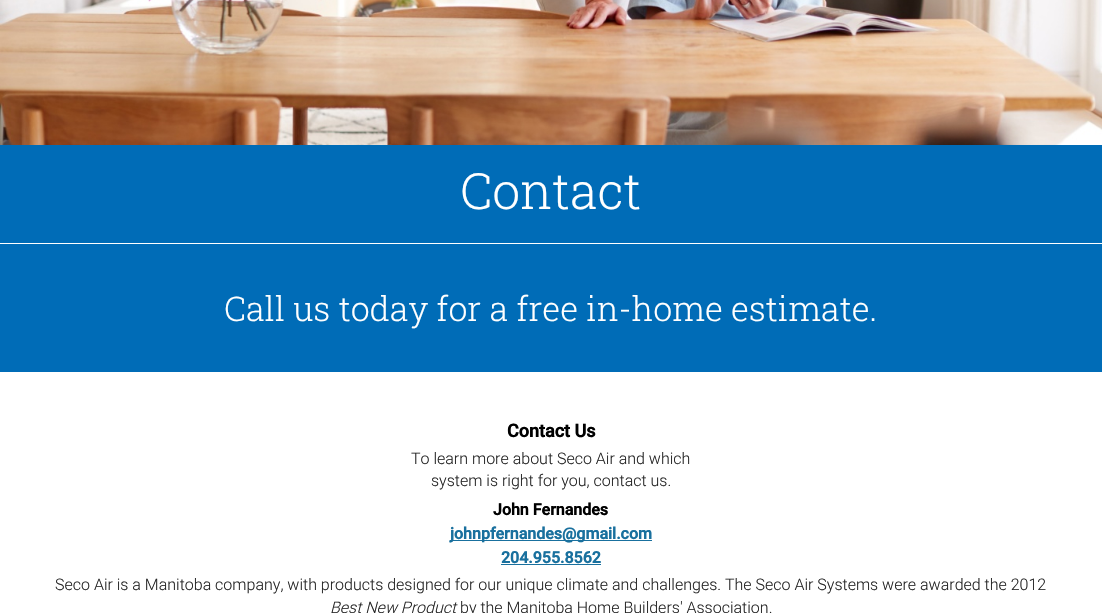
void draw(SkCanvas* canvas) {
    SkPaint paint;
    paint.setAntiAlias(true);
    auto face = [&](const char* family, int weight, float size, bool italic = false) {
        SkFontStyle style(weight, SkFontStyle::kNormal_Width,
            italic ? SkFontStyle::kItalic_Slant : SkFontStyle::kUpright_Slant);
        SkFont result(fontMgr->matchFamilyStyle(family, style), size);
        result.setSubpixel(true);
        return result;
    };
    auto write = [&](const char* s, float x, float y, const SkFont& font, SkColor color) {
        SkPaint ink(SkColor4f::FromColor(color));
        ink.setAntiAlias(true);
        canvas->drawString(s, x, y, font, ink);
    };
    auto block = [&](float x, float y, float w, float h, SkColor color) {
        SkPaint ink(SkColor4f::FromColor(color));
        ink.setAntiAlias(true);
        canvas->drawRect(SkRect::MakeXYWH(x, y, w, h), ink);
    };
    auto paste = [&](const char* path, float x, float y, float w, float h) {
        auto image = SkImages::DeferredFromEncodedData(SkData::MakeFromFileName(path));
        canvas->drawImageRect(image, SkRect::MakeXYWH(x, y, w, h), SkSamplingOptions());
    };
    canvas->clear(SK_ColorWHITE);
    paste("pic1.png", 0, 0, 1102, 145);
    block(0, 145, 1102, 98, SkColorSetRGB(0, 108, 183));
    auto kFont1 = face("Roboto Slab", 300, 50);
    write("Contact", 460, 209, kFont1, SK_ColorWHITE);
    block(0, 244, 1102, 128, SkColorSetRGB(0, 108, 183));
    auto kFont2 = face("Roboto Slab", 300, 34);
    write("Call us today for a free in-home estimate.", 224, 321, kFont2, SK_ColorWHITE);
    auto kFont3 = face("Roboto", 700, 18);
    write("Contact Us", 507, 437, kFont3, SK_ColorBLACK);
    auto kFont4 = face("Roboto", 300, 16);
    write("To learn more about Seco Air and which", 411, 464, kFont4, SkColorSetRGB(38, 38, 38));
    write("system is right for you, contact us.", 431, 486, kFont4, SkColorSetRGB(38, 38, 38));
    auto kFont5 = face("Roboto", 700, 16);
    write("John Fernandes", 493, 515, kFont5, SK_ColorBLACK);
    block(450, 540, 202, 1, SkColorSetRGB(25, 112, 158));
    write("johnpfernandes@gmail.com", 450, 539, kFont5, SkColorSetRGB(25, 112, 158));
    write("204.955.8562", 501, 563, kFont5, SkColorSetRGB(25, 112, 158));
    block(501, 564, 100, 1, SkColorSetRGB(25, 112, 158));
    write("Seco Air is a Manitoba company, with products designed for our unique climate and challenges. The Seco Air Systems were awarded the 2012", 55, 590, kFont4, SkColorSetRGB(38, 38, 38));
    auto kFont6 = face("Roboto", 300, 16, true);
    write("Best New Product", 330, 613, kFont6, SkColorSetRGB(38, 38, 38));
    write("by the Manitoba Home Builders' Association.", 460, 613, kFont4, SkColorSetRGB(38, 38, 38));
}
